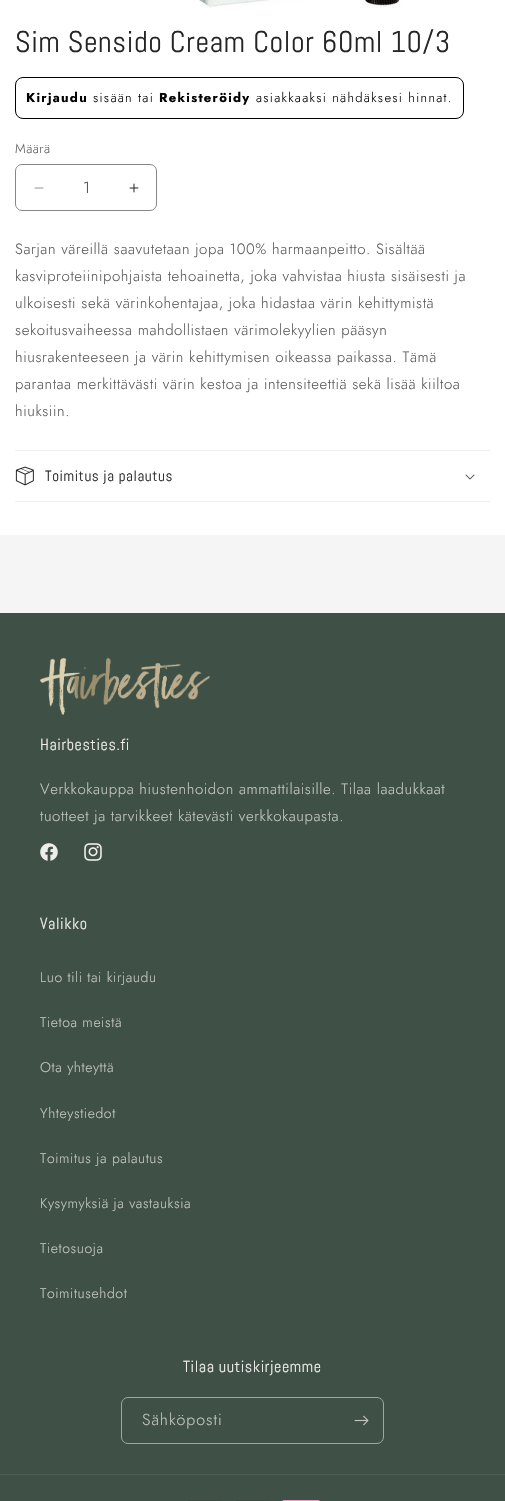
void draw(SkCanvas* canvas) {
    SkPaint paint;
    paint.setAntiAlias(true);
    auto face = [&](const char* family, int weight, float size, bool italic = false) {
        SkFontStyle style(weight, SkFontStyle::kNormal_Width,
            italic ? SkFontStyle::kItalic_Slant : SkFontStyle::kUpright_Slant);
        SkFont result(fontMgr->matchFamilyStyle(family, style), size);
        result.setSubpixel(true);
        return result;
    };
    auto write = [&](const char* s, float x, float y, const SkFont& font, SkColor color) {
        SkPaint ink(SkColor4f::FromColor(color));
        ink.setAntiAlias(true);
        canvas->drawString(s, x, y, font, ink);
    };
    auto writeSpaced = [&](const char* s, float x, float y, const SkFont& font, const SkPaint& ink, float letter, float word) {
        std::vector<SkGlyphID> glyphs(font.countText(s, strlen(s), SkTextEncoding::kUTF8));
        std::vector<float> xs(glyphs.size());
        font.textToGlyphs(s, strlen(s), SkTextEncoding::kUTF8, glyphs);
        font.getXPos(glyphs, xs, x);
        float extra = 0;
        for (size_t i = 0; i < glyphs.size(); i++) {
            xs[i] += extra;
            extra += letter + word * (glyphs[i] == font.unicharToGlyph(' '));
        }
        canvas->drawTextBlob(SkTextBlob::MakeFromPosHGlyphs(glyphs, xs, y, font), 0, 0, ink);
    };
    auto block = [&](float x, float y, float w, float h, SkColor color) {
        SkPaint ink(SkColor4f::FromColor(color));
        ink.setAntiAlias(true);
        canvas->drawRect(SkRect::MakeXYWH(x, y, w, h), ink);
    };
    auto paste = [&](const char* path, float x, float y, float w, float h) {
        auto image = SkImages::DeferredFromEncodedData(SkData::MakeFromFileName(path));
        canvas->drawImageRect(image, SkRect::MakeXYWH(x, y, w, h), SkSamplingOptions());
    };
    canvas->clear(SkColorSetRGB(245, 245, 245));
    block(0, 0, 505, 535, SK_ColorWHITE);
    paste("pic1.png", 198, 0, 203, 8);
    auto kFont1 = face("Abel", 400, 30);
    paint.setColor(SkColorSetRGB(37, 37, 37));
    writeSpaced("Sim Sensido Cream Color 60ml 10/3", 15, 52, kFont1, paint, 0.6f, 0);
    paint.setStyle(SkPaint::kStroke_Style);
    paint.setStrokeWidth(1);
    paint.setColor(SK_ColorBLACK);
    canvas->drawRoundRect(SkRect::MakeXYWH(15.5f, 77.5f, 448, 41), 7.5f, 7.5f, paint);
    auto kFont2 = face("Jost", 700, 13);
    paint.setStyle(SkPaint::kFill_Style);
    writeSpaced("Kirjaudu", 26, 102, kFont2, paint, 1.3f, 0);
    auto kFont3 = face("Jost", 300, 13);
    writeSpaced("sisään tai", 93, 102, kFont3, paint, 1.3f, 0);
    writeSpaced("Rekisteröidy", 159, 102, kFont2, paint, 1.3f, 0);
    writeSpaced("asiakkaaksi nähdäksesi hinnat.", 256, 102, kFont3, paint, 1.3f, 0);
    paint.setColor(SkColorSetRGB(92, 92, 92));
    writeSpaced("Määrä", 15, 153, kFont3, paint, 0.5f, 0);
    paste("pic2.png", 34, 187, 10, 2);
    paste("pic3.png", 129, 183, 10, 10);
    paint.setStyle(SkPaint::kStroke_Style);
    paint.setColor(SkColorSetRGB(135, 135, 135));
    canvas->drawRoundRect(SkRect::MakeXYWH(15.5f, 164.5f, 141, 46), 6.5f, 6.5f, paint);
    auto kFont4 = face("Jost", 300, 16);
    write("1", 83, 193, kFont4, SkColorSetRGB(70, 70, 70));
    auto kFont5 = face("Jost", 300, 15);
    paint.setStyle(SkPaint::kFill_Style);
    paint.setColor(SkColorSetRGB(92, 92, 92));
    writeSpaced("Sarjan väreillä saavutetaan jopa 100% harmaanpeitto. Sisältää", 15, 254, kFont5, paint, 0.6f, 0);
    writeSpaced("kasviproteiinipohjaista tehoainetta, joka vahvistaa hiusta sisäisesti ja", 15, 281, kFont5, paint, 0.6f, 0);
    writeSpaced("ulkoisesti sekä värinkohentajaa, joka hidastaa värin kehittymistä", 15, 308, kFont5, paint, 0.6f, 0);
    writeSpaced("sekoitusvaiheessa mahdollistaen värimolekyylien pääsyn", 15, 335, kFont5, paint, 0.6f, 0);
    writeSpaced("hiusrakenteeseen ja värin kehittymisen oikeassa paikassa. Tämä", 15, 362, kFont5, paint, 0.6f, 0);
    writeSpaced("parantaa merkittävästi värin kestoa ja intensiteettiä sekä lisää kiiltoa", 15, 389, kFont5, paint, 0.6f, 0);
    writeSpaced("hiuksiin.", 15, 416, kFont5, paint, 0.6f, 0);
    block(15, 450, 475, 1, SkColorSetRGB(238, 238, 238));
    block(15, 501, 475, 1, SkColorSetRGB(238, 238, 238));
    paste("pic4.png", 15, 466, 19, 20);
    auto kFont6 = face("Abel", 400, 15);
    paint.setColor(SkColorSetRGB(37, 37, 37));
    writeSpaced("Toimitus ja palautus", 45, 481, kFont6, paint, 0.6f, 0);
    paste("pic5.png", 465, 474, 10, 6);
    block(0, 613, 505, 888, SkColorSetRGB(63, 81, 71));
    paste("pic6.png", 40, 658, 170, 57);
    auto kFont7 = face("Abel", 400, 16);
    paint.setColor(SkColorSetRGB(239, 236, 236));
    writeSpaced("Hairbesties.fi", 40, 750, kFont7, paint, 0.6f, 0);
    paint.setColor(SkColorSetRGB(195, 197, 195));
    writeSpaced("Verkkokauppa hiustenhoidon ammattilaisille. Tilaa laadukkaat", 40, 794, kFont5, paint, 0.6f, 0);
    writeSpaced("tuotteet ja tarvikkeet kätevästi verkkokaupasta.", 40, 821, kFont5, paint, 0.6f, 0);
    paste("pic7.png", 40, 843, 18, 18);
    paste("pic8.png", 84, 843, 18, 18);
    paint.setColor(SkColorSetRGB(239, 236, 236));
    writeSpaced("Valikko", 40, 929, kFont7, paint, 0.6f, 0);
    auto kFont8 = face("Jost", 300, 14);
    paint.setColor(SkColorSetRGB(195, 197, 195));
    writeSpaced("Luo tili tai kirjaudu", 40, 982, kFont8, paint, 0.6f, 0);
    writeSpaced("Tietoa meistä", 40, 1027, kFont8, paint, 0.6f, 0);
    writeSpaced("Ota yhteyttä", 40, 1072, kFont8, paint, 0.6f, 0);
    writeSpaced("Yhteystiedot", 40, 1118, kFont8, paint, 0.6f, 0);
    writeSpaced("Toimitus ja palautus", 40, 1163, kFont8, paint, 0.6f, 0);
    writeSpaced("Kysymyksiä ja vastauksia", 40, 1208, kFont8, paint, 0.6f, 0);
    writeSpaced("Tietosuoja", 40, 1253, kFont8, paint, 0.6f, 0);
    writeSpaced("Toimitusehdot", 40, 1298, kFont8, paint, 0.6f, 0);
    paint.setColor(SkColorSetRGB(239, 236, 236));
    writeSpaced("Tilaa uutiskirjeemme", 183, 1372, kFont7, paint, 0.6f, 0);
    paint.setStyle(SkPaint::kStroke_Style);
    paint.setColor(SkColorSetRGB(160, 166, 162));
    canvas->drawRoundRect(SkRect::MakeXYWH(121.5f, 1397.5f, 262, 46), 6.5f, 6.5f, paint);
    paint.setStyle(SkPaint::kFill_Style);
    paint.setColor(SkColorSetRGB(195, 197, 195));
    writeSpaced("Sähköposti", 142, 1425, kFont4, paint, 1, 0);
    paste("pic9.png", 354, 1415, 15, 11);
    block(0, 1474, 505, 1, SkColorSetRGB(77, 93, 84));
    block(188, 1500, 34, 1, SkColorSetRGB(59, 75, 66));
    block(236, 1500, 34, 1, SkColorSetRGB(59, 75, 66));
    paste("pic10.png", 282, 1500, 38, 1);
}
